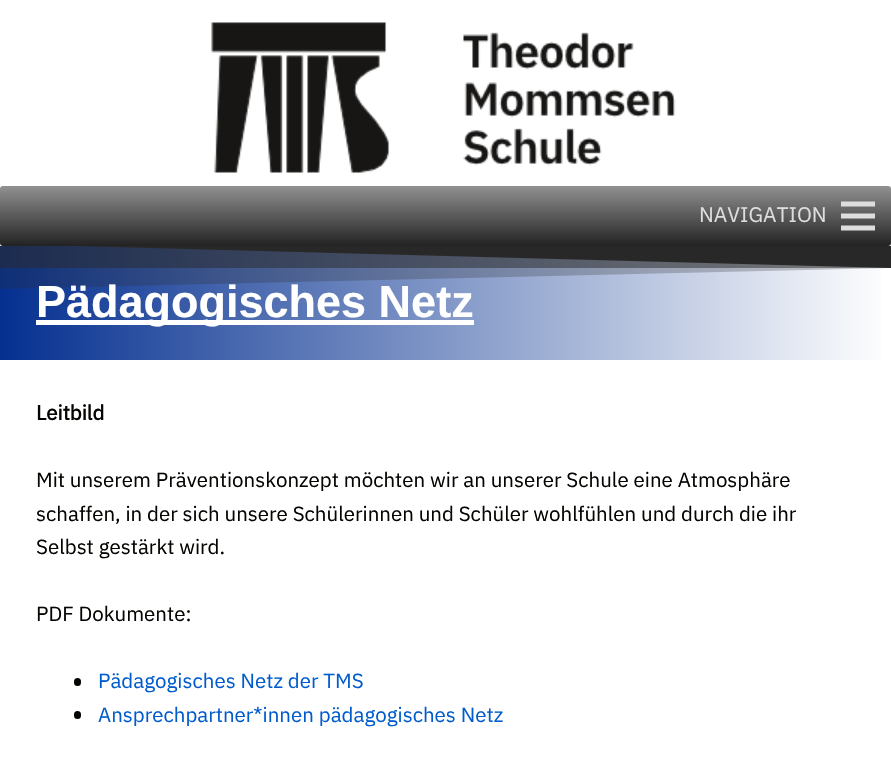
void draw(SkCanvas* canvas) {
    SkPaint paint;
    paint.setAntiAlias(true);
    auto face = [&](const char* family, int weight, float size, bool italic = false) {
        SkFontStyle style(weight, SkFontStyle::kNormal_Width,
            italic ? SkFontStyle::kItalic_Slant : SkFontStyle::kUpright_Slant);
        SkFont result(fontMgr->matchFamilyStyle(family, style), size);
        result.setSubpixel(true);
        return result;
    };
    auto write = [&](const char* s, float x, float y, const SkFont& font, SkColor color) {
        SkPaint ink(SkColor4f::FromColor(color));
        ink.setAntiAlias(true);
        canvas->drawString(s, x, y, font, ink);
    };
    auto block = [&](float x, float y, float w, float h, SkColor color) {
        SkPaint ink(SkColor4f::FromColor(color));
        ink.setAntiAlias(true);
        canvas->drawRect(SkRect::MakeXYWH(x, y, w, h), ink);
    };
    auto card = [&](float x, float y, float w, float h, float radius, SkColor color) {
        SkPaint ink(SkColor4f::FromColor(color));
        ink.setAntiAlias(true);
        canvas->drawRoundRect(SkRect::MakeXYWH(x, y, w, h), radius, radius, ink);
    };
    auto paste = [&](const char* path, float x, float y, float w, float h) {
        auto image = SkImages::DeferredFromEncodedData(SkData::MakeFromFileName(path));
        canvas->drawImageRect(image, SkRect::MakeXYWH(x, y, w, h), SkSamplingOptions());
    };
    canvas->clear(SK_ColorWHITE);
    {
        const SkColor colors[] = {SkColorSetRGB(23, 44, 92), SkColorSetRGB(148, 148, 148)};
        const float stops[] = {0, 1};
        const SkPoint ends[] = {{0, 303}, {891, 303}};
        paint.setShader(SkGradientShader::MakeLinear(ends, colors, stops, 2, SkTileMode::kClamp));
        paint.setAlpha(255);
    }
    canvas->drawRect(SkRect::MakeXYWH(0, 246, 891, 22), paint);
    paint.setShader(nullptr);
    paint.setColor(SkColorSetRGB(40, 40, 40));
    canvas->drawPath(SkPathBuilder().moveTo(-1, 244).lineTo(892, 244).lineTo(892, 268).close().detach(), paint);
    {
        const SkColor colors[] = {SkColorSetRGB(5, 48, 144), SK_ColorWHITE};
        const float stops[] = {0, 1};
        const SkPoint ends[] = {{0, 303}, {891, 303}};
        paint.setShader(SkGradientShader::MakeLinear(ends, colors, stops, 2, SkTileMode::kClamp));
        paint.setAlpha(255);
    }
    canvas->drawRect(SkRect::MakeXYWH(0, 268, 882, 92), paint);
    paint.setShader(nullptr);
    paint.setColor(SkColorSetARGB(64, 40, 40, 40));
    canvas->drawPath(SkPathBuilder().moveTo(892, 244).lineTo(-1, 244).lineTo(-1, 289).lineTo(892, 268).close().detach(), paint);
    block(0, 244, 891, 2, SK_ColorWHITE);
    paste("pic1.png", 211, 22, 465, 151);
    {
        const SkColor colors[] = {SkColorSetRGB(145, 145, 145), SkColorSetRGB(34, 34, 34)};
        const float stops[] = {0, 1};
        const SkPoint ends[] = {{446, 186}, {446, 246}};
        paint.setShader(SkGradientShader::MakeLinear(ends, colors, stops, 2, SkTileMode::kClamp));
        paint.setAlpha(255);
    }
    canvas->drawRoundRect(SkRect::MakeXYWH(0, 186, 891, 60), 3, 3, paint);
    auto kFont1 = face("IBM Plex Sans", 400, 21);
    write("NAVIGATION", 699, 222, kFont1, SkColorSetRGB(221, 221, 221));
    paint.setShader(nullptr);
    paint.setColor(SkColorSetRGB(221, 221, 221));
    canvas->drawPath(SkPathBuilder().moveTo(841, 218.5f).lineTo(875, 218.5f).lineTo(875, 213.5f).lineTo(841, 213.5f).close().moveTo(841, 230.5f).lineTo(875, 230.5f).lineTo(875, 225.5f).lineTo(841, 225.5f).close().moveTo(841, 201.5f).lineTo(841, 206.5f).lineTo(875, 206.5f).lineTo(875, 201.5f).close().detach(), paint);
    block(36, 320, 438, 5, SK_ColorWHITE);
    auto kFont2 = face("Liberation Sans", 700, 45);
    write("Pädagogisches Netz", 36, 317, kFont2, SK_ColorWHITE);
    auto kFont3 = face("IBM Plex Sans", 700, 20.5f);
    write("Leitbild", 36, 420, kFont3, SkColorSetRGB(5, 4, 1));
    auto kFont4 = face("IBM Plex Sans", 400, 20.5f);
    write("Mit unserem Präventionskonzept möchten wir an unserer Schule eine Atmosphäre", 36, 487, kFont4, SkColorSetRGB(5, 4, 1));
    write("schaffen, in der sich unsere Schülerinnen und Schüler wohlfühlen und durch die ihr", 36, 521, kFont4, SkColorSetRGB(5, 4, 1));
    write("Selbst gestärkt wird.", 36, 554, kFont4, SkColorSetRGB(5, 4, 1));
    write("PDF Dokumente:", 36, 621, kFont4, SkColorSetRGB(5, 4, 1));
    card(74, 678, 7, 8, 3.5f, SkColorSetRGB(5, 4, 1));
    write("Pädagogisches Netz der TMS", 98, 688, kFont4, SkColorSetRGB(0, 91, 204));
    card(74, 711, 7, 8, 3.5f, SkColorSetRGB(5, 4, 1));
    write("Ansprechpartner*innen pädagogisches Netz", 98, 722, kFont4, SkColorSetRGB(0, 91, 204));
}
